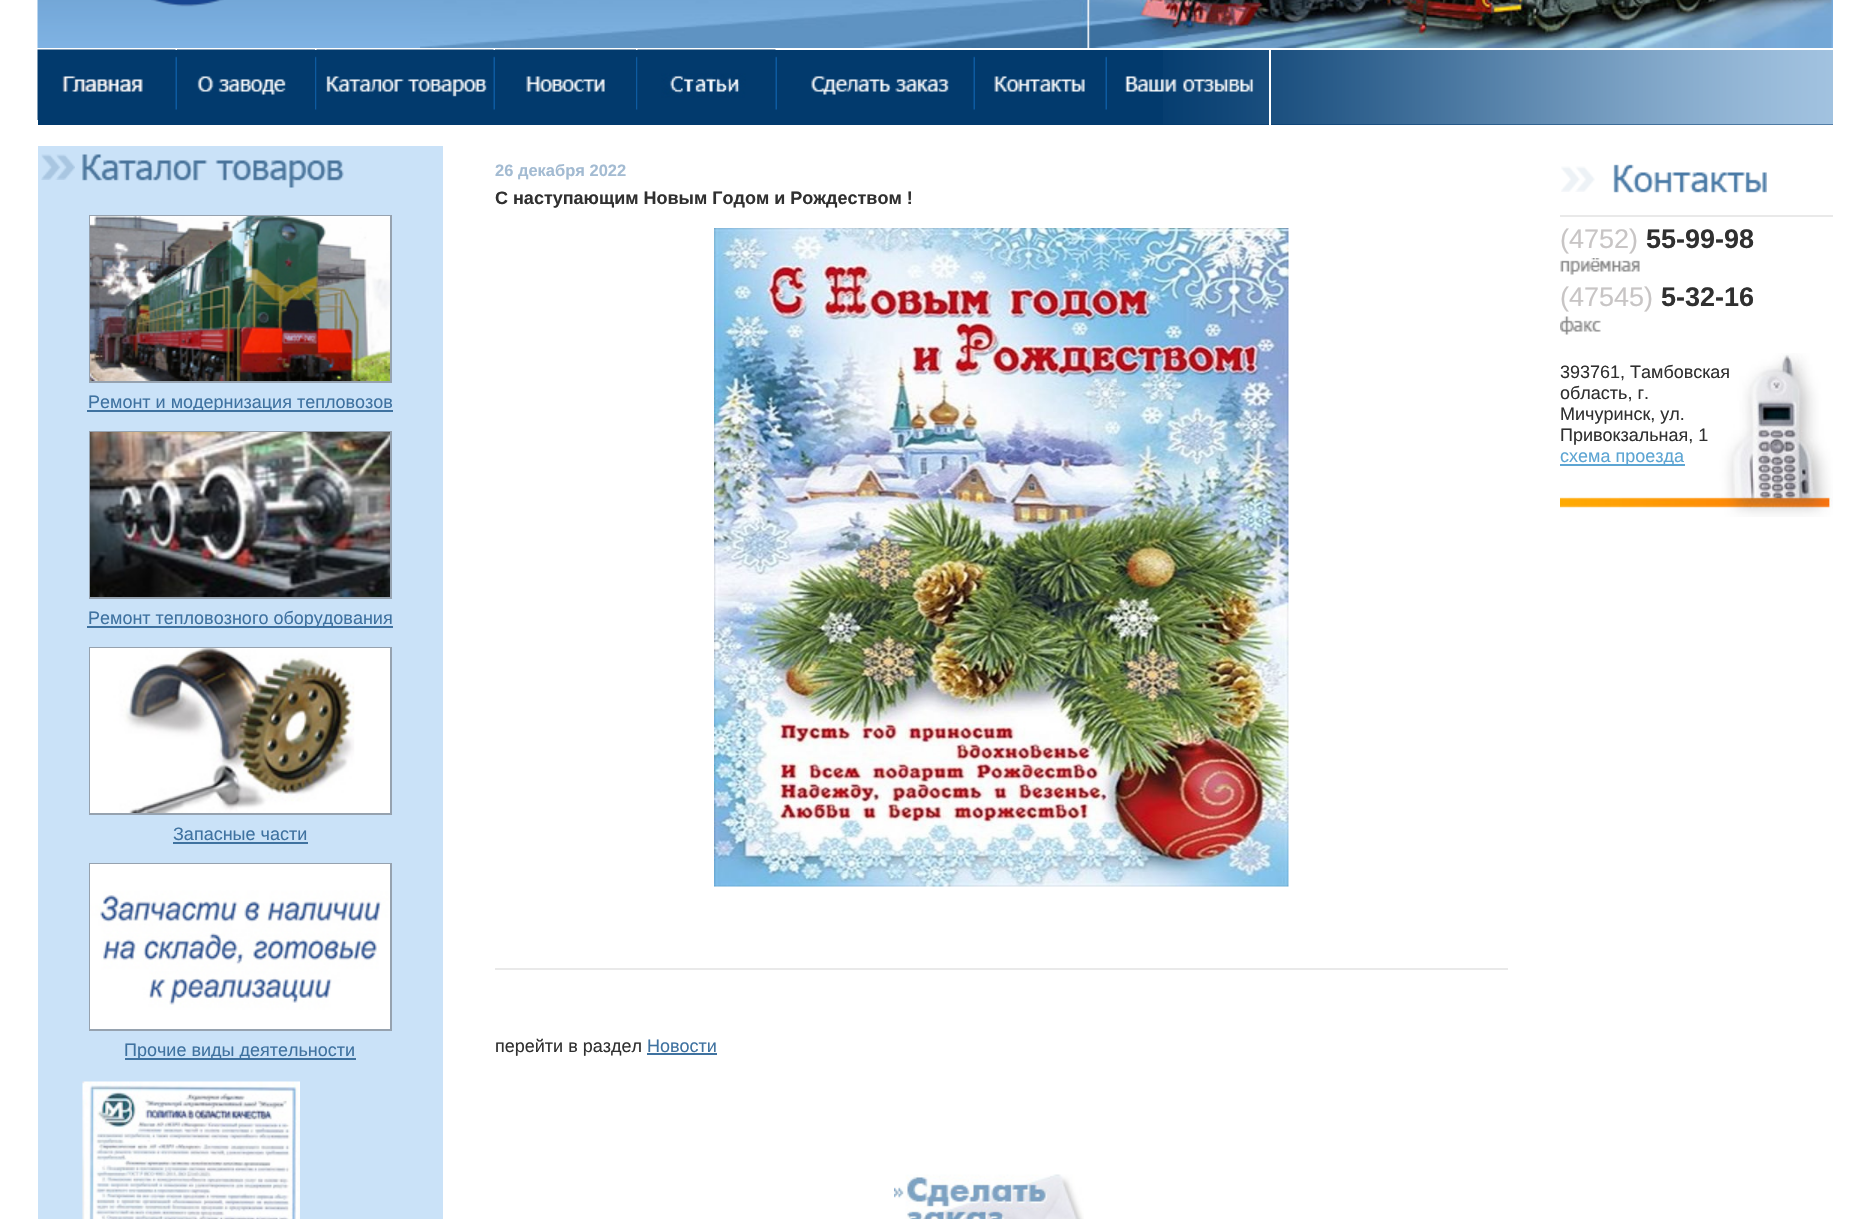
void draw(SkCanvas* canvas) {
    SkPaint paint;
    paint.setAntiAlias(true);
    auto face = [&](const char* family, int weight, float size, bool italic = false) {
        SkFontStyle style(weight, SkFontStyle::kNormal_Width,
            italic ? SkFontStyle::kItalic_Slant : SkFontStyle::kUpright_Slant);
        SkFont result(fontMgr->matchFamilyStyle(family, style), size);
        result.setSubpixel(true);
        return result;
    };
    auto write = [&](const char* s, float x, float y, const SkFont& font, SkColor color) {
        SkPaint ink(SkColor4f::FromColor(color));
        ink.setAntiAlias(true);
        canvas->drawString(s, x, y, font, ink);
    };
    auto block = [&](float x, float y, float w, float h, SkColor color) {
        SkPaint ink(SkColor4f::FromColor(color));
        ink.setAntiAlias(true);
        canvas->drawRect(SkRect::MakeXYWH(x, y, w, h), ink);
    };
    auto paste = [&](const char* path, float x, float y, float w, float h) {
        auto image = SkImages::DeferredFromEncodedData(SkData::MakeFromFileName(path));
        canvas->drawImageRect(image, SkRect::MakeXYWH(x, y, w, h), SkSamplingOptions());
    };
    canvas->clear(SK_ColorWHITE);
    paste("pic1.png", 37, 0, 1796, 48);
    paste("pic2.png", 151, 0, 73, 7);
    paste("pic3.png", 420, 0, 1412, 48);
    block(38, 50, 1795, 75, SkColorSetRGB(2, 58, 109));
    paste("pic4.png", 1163, 50, 670, 75);
    block(1269, 50, 2, 75, SK_ColorWHITE);
    paste("pic5.png", 37, 49, 139, 71);
    paste("pic6.png", 177, 49, 138, 46);
    paste("pic11.png", 315, 56, 2, 54);
    paste("pic7.png", 316, 49, 178, 61);
    paste("pic8.png", 495, 49, 141, 43);
    paste("pic11.png", 636, 56, 2, 54);
    paste("pic9.png", 637, 49, 139, 61);
    paste("pic10.png", 175, 56, 2, 54);
    paste("pic10.png", 493, 56, 2, 54);
    paste("pic10.png", 775, 56, 2, 54);
    paste("pic12.png", 811, 76, 138, 19);
    paste("pic13.png", 973, 56, 2, 54);
    paste("pic14.png", 994, 76, 91, 16);
    paste("pic13.png", 1105, 56, 2, 54);
    paste("pic15.png", 1125, 76, 129, 16);
    auto kFont1 = face("Liberation Sans", 700, 16.5f);
    write("26 декабря 2022", 495, 176, kFont1, SkColorSetRGB(163, 187, 210));
    auto kFont2 = face("Liberation Sans", 700, 18);
    write("С наступающим Новым Годом и Рождеством !", 495, 204, kFont2, SkColorSetRGB(48, 48, 48));
    paste("pic16.png", 714, 228, 575, 659);
    block(495, 968, 1013, 2, SkColorSetRGB(233, 233, 233));
    auto kFont3 = face("Liberation Sans", 400, 18);
    write("перейти в раздел", 495, 1052, kFont3, SkColorSetRGB(48, 48, 48));
    write("Новости", 647, 1052, kFont3, SkColorSetRGB(63, 114, 160));
    block(647, 1053, 70, 2, SkColorSetRGB(63, 114, 160));
    paste("pic17.png", 894, 1174, 190, 45);
    paste("pic18.png", 1561, 166, 34, 26);
    block(1560, 215, 273, 2, SkColorSetRGB(233, 233, 233));
    paste("pic19.png", 1613, 164, 154, 29);
    paste("pic20.png", 1560, 353, 273, 164);
    auto kFont4 = face("Liberation Sans", 400, 27);
    write("(4752)", 1560, 248, kFont4, SkColorSetRGB(200, 197, 197));
    auto kFont5 = face("Liberation Sans", 700, 27);
    write("55-99-98", 1646, 248, kFont5, SkColorSetRGB(48, 48, 48));
    paste("pic21.png", 1560, 258, 80, 17);
    write("(47545)", 1560, 306, kFont4, SkColorSetRGB(200, 197, 197));
    write("5-32-16", 1661, 306, kFont5, SkColorSetRGB(48, 48, 48));
    paste("pic22.png", 1560, 316, 41, 19);
    write("393761, Тамбовская", 1560, 378, kFont3, SkColorSetRGB(48, 48, 48));
    write("область, г.", 1560, 399, kFont3, SkColorSetRGB(48, 48, 48));
    write("Мичуринск, ул.", 1560, 420, kFont3, SkColorSetRGB(48, 48, 48));
    write("Привокзальная, 1", 1560, 441, kFont3, SkColorSetRGB(48, 48, 48));
    block(1560, 464, 125, 2, SkColorSetRGB(93, 165, 211));
    write("схема проезда", 1560, 462, kFont3, SkColorSetRGB(93, 165, 211));
    block(38, 146, 405, 1073, SkColorSetRGB(202, 226, 248));
    paste("pic23.png", 41, 154, 34, 26);
    paste("pic24.png", 82, 154, 262, 34);
    paint.setStyle(SkPaint::kStroke_Style);
    paint.setStrokeWidth(2);
    paint.setColor(SkColorSetRGB(150, 162, 175));
    canvas->drawRect(SkRect::MakeXYWH(90, 216, 301, 166), paint);
    paste("pic25.png", 90, 216, 300, 165);
    block(87, 410, 306, 2, SkColorSetRGB(63, 114, 160));
    write("Ремонт и модернизация тепловозов", 88, 408, kFont3, SkColorSetRGB(63, 114, 160));
    canvas->drawRect(SkRect::MakeXYWH(90, 432, 301, 166), paint);
    paste("pic26.png", 90, 432, 300, 165);
    block(87, 626, 306, 2, SkColorSetRGB(63, 114, 160));
    write("Ремонт тепловозного оборудования", 88, 624, kFont3, SkColorSetRGB(63, 114, 160));
    canvas->drawRect(SkRect::MakeXYWH(90, 648, 301, 166), paint);
    paste("pic27.png", 90, 648, 300, 165);
    write("Запасные части", 173, 840, kFont3, SkColorSetRGB(63, 114, 160));
    block(173, 842, 135, 2, SkColorSetRGB(63, 114, 160));
    canvas->drawRect(SkRect::MakeXYWH(90, 864, 301, 166), paint);
    paste("pic28.png", 90, 864, 300, 165);
    block(125, 1058, 231, 2, SkColorSetRGB(63, 114, 160));
    write("Прочие виды деятельности", 124, 1056, kFont3, SkColorSetRGB(63, 114, 160));
    paste("pic29.png", 82, 1081, 218, 138);
}
